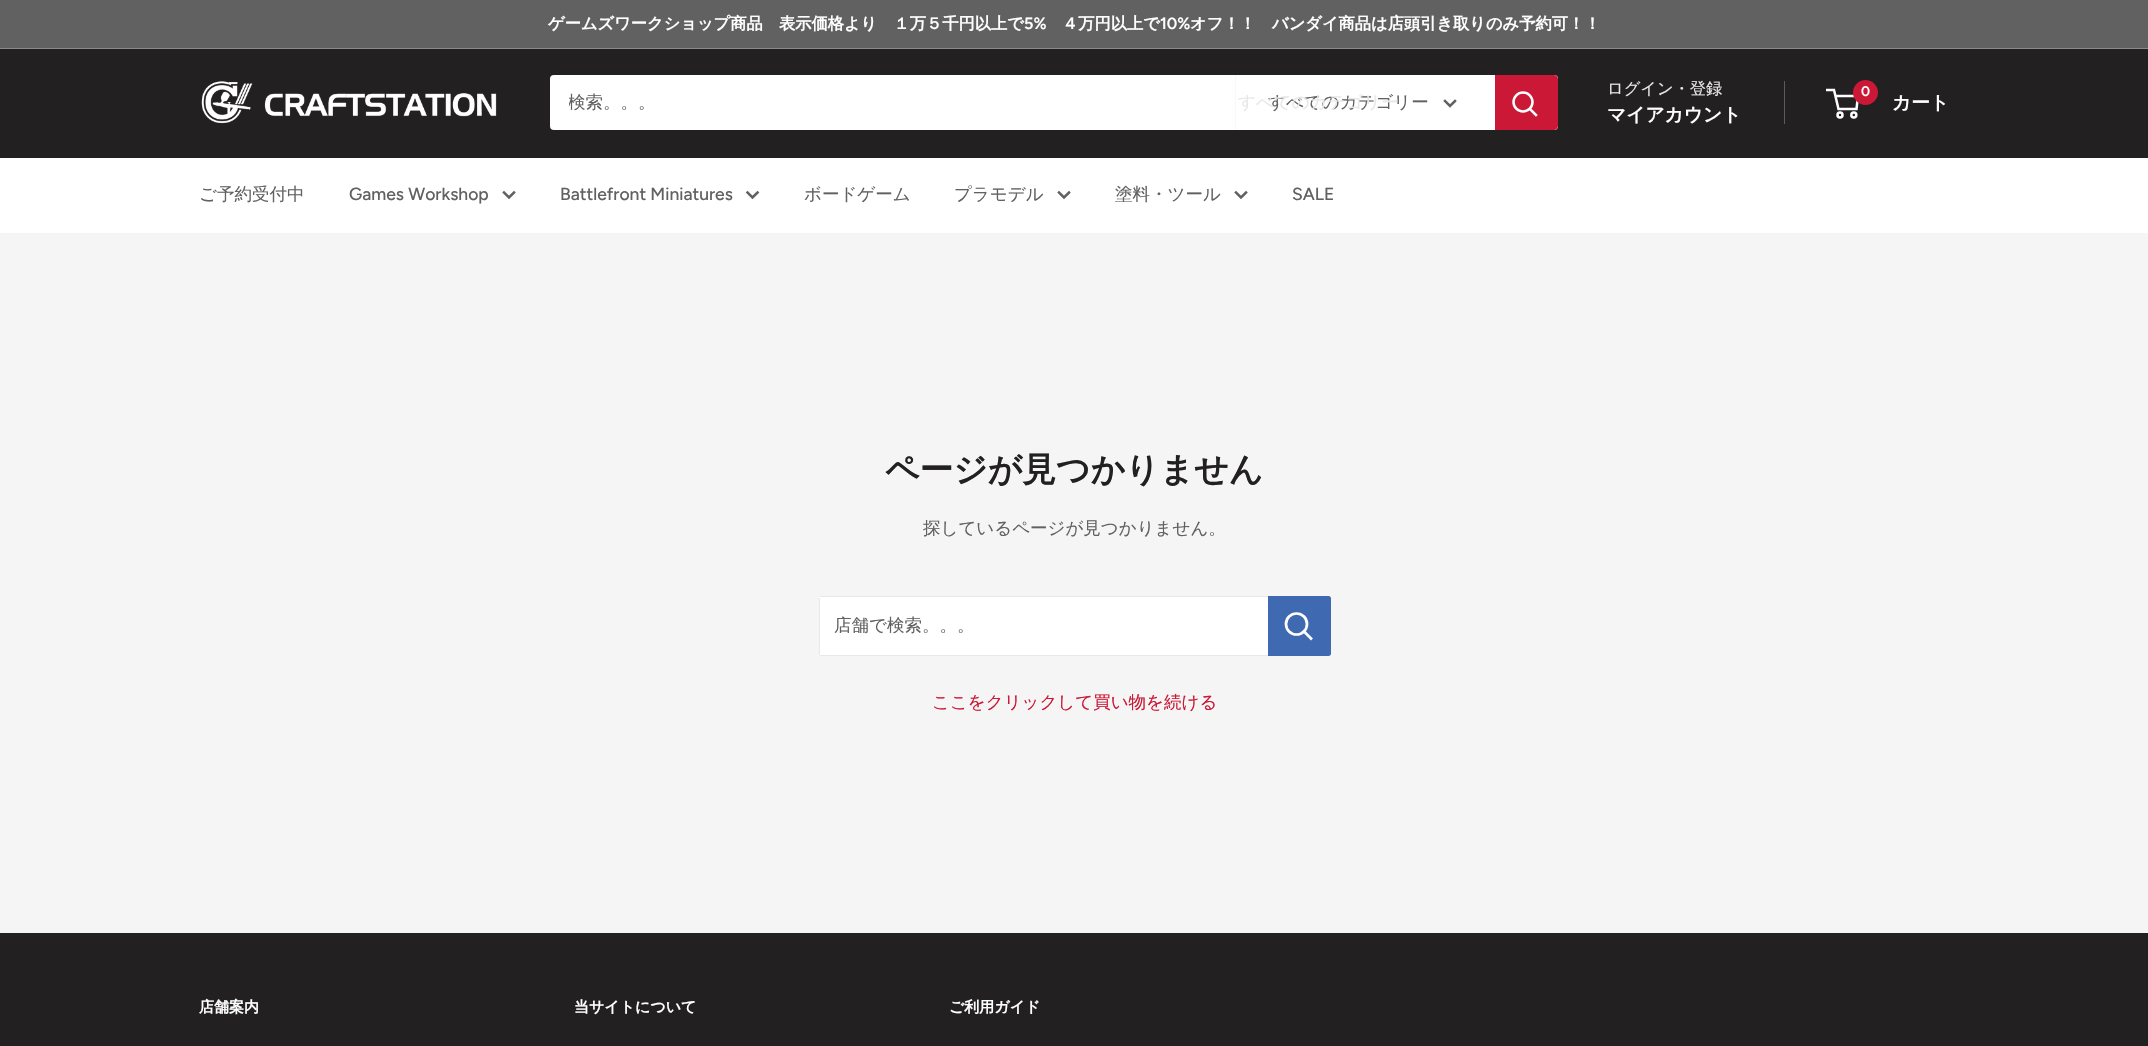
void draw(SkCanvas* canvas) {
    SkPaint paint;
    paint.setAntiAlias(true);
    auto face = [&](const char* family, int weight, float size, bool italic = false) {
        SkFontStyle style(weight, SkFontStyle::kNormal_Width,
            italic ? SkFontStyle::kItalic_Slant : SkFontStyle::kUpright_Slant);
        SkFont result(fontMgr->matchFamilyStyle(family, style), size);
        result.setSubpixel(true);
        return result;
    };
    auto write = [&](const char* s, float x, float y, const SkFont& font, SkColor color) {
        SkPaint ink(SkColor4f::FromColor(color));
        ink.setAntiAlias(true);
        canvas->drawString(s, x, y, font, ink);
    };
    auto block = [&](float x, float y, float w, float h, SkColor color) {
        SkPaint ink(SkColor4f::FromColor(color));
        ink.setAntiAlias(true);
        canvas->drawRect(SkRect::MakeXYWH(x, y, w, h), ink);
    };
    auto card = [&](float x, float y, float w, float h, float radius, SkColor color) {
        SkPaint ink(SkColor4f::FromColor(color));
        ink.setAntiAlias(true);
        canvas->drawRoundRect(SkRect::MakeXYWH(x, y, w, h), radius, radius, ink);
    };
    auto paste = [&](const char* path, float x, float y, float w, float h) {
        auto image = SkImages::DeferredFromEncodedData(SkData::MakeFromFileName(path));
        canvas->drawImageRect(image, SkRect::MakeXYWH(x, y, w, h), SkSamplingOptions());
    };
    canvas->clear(SkColorSetRGB(245, 245, 245));
    block(0, 0, 2148, 48, SkColorSetRGB(97, 97, 97));
    block(0, 48, 2148, 1, SkColorSetRGB(138, 138, 138));
    auto kFont1 = face("WenQuanYi Zen Hei", 700, 16.25f);
    write("ゲームズワークショップ商品　表示価格より　１万５千円以上で", 548, 29, kFont1, SK_ColorWHITE);
    auto kFont2 = face("Figtree", 600, 16.25f);
    write("5%", 1024, 29, kFont2, SK_ColorWHITE);
    write("４万円以上で", 1062, 29, kFont1, SK_ColorWHITE);
    write("10%", 1160, 29, kFont2, SK_ColorWHITE);
    write("オフ！！　バンダイ商品は店頭引き取りのみ予約可！！", 1190, 29, kFont1, SK_ColorWHITE);
    block(0, 49, 2148, 109, SkColorSetRGB(34, 32, 33));
    paste("pic1.png", 201, 81, 296, 43);
    card(550, 75, 1008, 55, 4, SK_ColorWHITE);
    canvas->save();
    canvas->clipRect(SkRect::MakeXYWH(569, 91, 647, 23));
    auto kFont3 = face("WenQuanYi Zen Hei", 500, 17.5f);
    write("検索。。。", 568, 108, kFont3, SkColorSetRGB(97, 97, 97));
    canvas->restore();
    block(1235, 75, 1, 55, SkColorSetRGB(248, 248, 248));
    write("すべてのカテゴリー", 1268, 108, kFont3, SkColorSetRGB(97, 97, 97));
    write("すべてのカテゴリー", 1238, 108, kFont3, SkColorSetRGB(232, 232, 232));
    paint.setStyle(SkPaint::kStroke_Style);
    paint.setStrokeWidth(2.5f);
    paint.setStrokeCap(SkPaint::kSquare_Cap);
    paint.setColor(SkColorSetRGB(97, 97, 97));
    canvas->drawPath(SkPathBuilder().moveTo(1455, 101).lineTo(1450, 106).lineTo(1445, 101).detach(), paint);
    paint.setStyle(SkPaint::kFill_Style);
    paint.setColor(SkColorSetRGB(203, 24, 54));
    canvas->drawPath(SkPathBuilder().moveTo(1495, 75).lineTo(1554, 75).cubicTo(1556, 75, 1558, 77, 1558, 79).lineTo(1558, 126).cubicTo(1558, 128, 1556, 130, 1554, 130).lineTo(1495, 130).close().detach(), paint);
    paint.setStyle(SkPaint::kStroke_Style);
    paint.setColor(SK_ColorWHITE);
    canvas->drawPath(SkPathBuilder().moveTo(1536, 115).lineTo(1530, 109).detach(), paint);
    paint.setStrokeCap(SkPaint::kButt_Cap);
    canvas->drawCircle(1523, 102, 9.5f, paint);
    auto kFont4 = face("WenQuanYi Zen Hei", 500, 16.25f);
    write("ログイン・登録", 1607, 94, kFont4, SkColorSetRGB(232, 232, 232));
    block(1784, 81, 1, 43, SkColorSetRGB(93, 92, 93));
    auto kFont5 = face("WenQuanYi Zen Hei", 700, 18.75f);
    write("マイアカウント", 1607, 121, kFont5, SK_ColorWHITE);
    canvas->drawCircle(1840, 115, 2.5f, paint);
    canvas->drawCircle(1853.8f, 115, 2.5f, paint);
    canvas->drawPath(SkPathBuilder().moveTo(1835.5f, 96).lineTo(1858, 96).lineTo(1856.5f, 109).lineTo(1838.5f, 109).lineTo(1834, 90).lineTo(1826, 90).detach(), paint);
    paint.setStyle(SkPaint::kFill_Style);
    paint.setColor(SkColorSetRGB(203, 24, 54));
    canvas->drawCircle(1865.5f, 92.5f, 12.5f, paint);
    auto kFont6 = face("Figtree", 600, 14);
    write("0", 1861, 96, kFont6, SK_ColorWHITE);
    write("カート", 1892, 109, kFont5, SK_ColorWHITE);
    block(0, 158, 2148, 75, SK_ColorWHITE);
    write("ご予約受付中", 199, 200, kFont3, SkColorSetRGB(97, 97, 97));
    auto kFont7 = face("Figtree", 500, 17.5f);
    write("Games Workshop", 349, 200, kFont7, SkColorSetRGB(97, 97, 97));
    paint.setStyle(SkPaint::kStroke_Style);
    paint.setStrokeCap(SkPaint::kSquare_Cap);
    paint.setColor(SkColorSetRGB(97, 97, 97));
    canvas->drawPath(SkPathBuilder().moveTo(514, 192.5f).lineTo(509, 197.5f).lineTo(504, 192.5f).detach(), paint);
    write("Battlefront Miniatures", 560, 200, kFont7, SkColorSetRGB(97, 97, 97));
    canvas->drawPath(SkPathBuilder().moveTo(757.5f, 192.5f).lineTo(752.5f, 197.5f).lineTo(747.5f, 192.5f).detach(), paint);
    write("ボードゲーム", 804, 200, kFont3, SkColorSetRGB(97, 97, 97));
    write("プラモデル", 954, 200, kFont3, SkColorSetRGB(97, 97, 97));
    canvas->drawPath(SkPathBuilder().moveTo(1069, 192.5f).lineTo(1064, 197.5f).lineTo(1059, 192.5f).detach(), paint);
    write("塗料・ツール", 1115, 200, kFont3, SkColorSetRGB(97, 97, 97));
    canvas->drawPath(SkPathBuilder().moveTo(1246, 192.5f).lineTo(1241, 197.5f).lineTo(1236, 192.5f).detach(), paint);
    write("SALE", 1292, 200, kFont7, SkColorSetRGB(97, 97, 97));
    auto kFont8 = face("WenQuanYi Zen Hei", 700, 33.75f);
    write("ページが見つかりません", 885, 481, kFont8, SkColorSetRGB(34, 32, 33));
    write("探しているページが見つかりません。", 923, 534, kFont3, SkColorSetRGB(97, 97, 97));
    paint.setStyle(SkPaint::kFill_Style);
    paint.setColor(SK_ColorWHITE);
    canvas->drawPath(SkPathBuilder().moveTo(821.5f, 596).lineTo(1268, 596).lineTo(1268, 656).lineTo(821.5f, 656).cubicTo(820, 656, 819, 655, 819, 653.5f).lineTo(819, 598.5f).cubicTo(819, 597, 820, 596, 821.5f, 596).close().detach(), paint);
    block(820, 596, 448, 1, SkColorSetRGB(232, 232, 232));
    block(820, 655, 448, 1, SkColorSetRGB(232, 232, 232));
    block(819, 598, 1, 57, SkColorSetRGB(232, 232, 232));
    write("店舗で検索。。。", 834, 631, kFont3, SkColorSetRGB(97, 97, 97));
    paint.setColor(SkColorSetRGB(63, 106, 177));
    canvas->drawPath(SkPathBuilder().moveTo(1268, 596).lineTo(1328.5f, 596).cubicTo(1330, 596, 1331, 597, 1331, 598.5f).lineTo(1331, 653.5f).cubicTo(1331, 655, 1330, 656, 1328.5f, 656).lineTo(1268, 656).close().detach(), paint);
    paint.setStyle(SkPaint::kStroke_Style);
    paint.setStrokeWidth(2.7f);
    paint.setColor(SK_ColorWHITE);
    canvas->drawPath(SkPathBuilder().moveTo(1311, 638.5f).lineTo(1304, 631.5f).detach(), paint);
    paint.setStrokeCap(SkPaint::kButt_Cap);
    canvas->drawCircle(1296.5f, 624, 10.5f, paint);
    write("ここをクリックして買い物を続ける", 932, 708, kFont3, SkColorSetRGB(203, 24, 54));
    block(0, 933, 2148, 113, SkColorSetRGB(34, 32, 33));
    auto kFont9 = face("WenQuanYi Zen Hei", 700, 15);
    write("店舗案内", 199, 1012, kFont9, SK_ColorWHITE);
    write("当サイトについて", 574, 1012, kFont9, SK_ColorWHITE);
    write("ご利用ガイド", 949, 1012, kFont9, SK_ColorWHITE);
}
